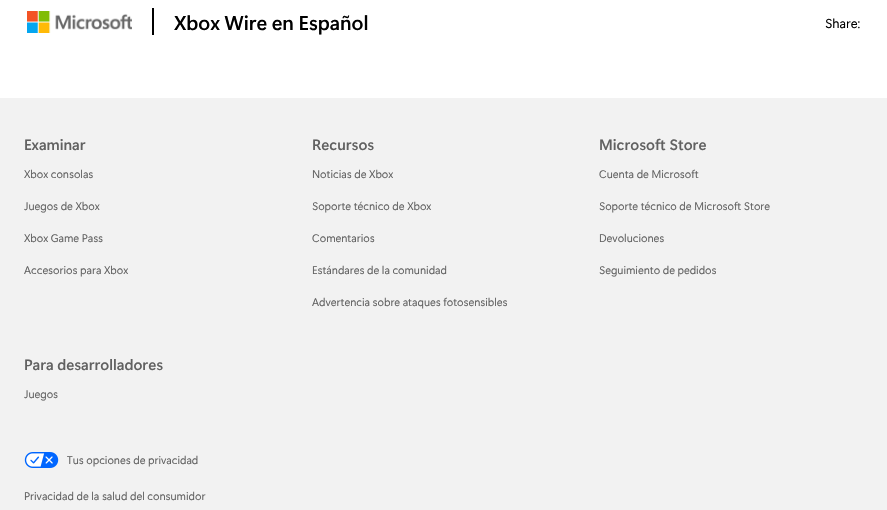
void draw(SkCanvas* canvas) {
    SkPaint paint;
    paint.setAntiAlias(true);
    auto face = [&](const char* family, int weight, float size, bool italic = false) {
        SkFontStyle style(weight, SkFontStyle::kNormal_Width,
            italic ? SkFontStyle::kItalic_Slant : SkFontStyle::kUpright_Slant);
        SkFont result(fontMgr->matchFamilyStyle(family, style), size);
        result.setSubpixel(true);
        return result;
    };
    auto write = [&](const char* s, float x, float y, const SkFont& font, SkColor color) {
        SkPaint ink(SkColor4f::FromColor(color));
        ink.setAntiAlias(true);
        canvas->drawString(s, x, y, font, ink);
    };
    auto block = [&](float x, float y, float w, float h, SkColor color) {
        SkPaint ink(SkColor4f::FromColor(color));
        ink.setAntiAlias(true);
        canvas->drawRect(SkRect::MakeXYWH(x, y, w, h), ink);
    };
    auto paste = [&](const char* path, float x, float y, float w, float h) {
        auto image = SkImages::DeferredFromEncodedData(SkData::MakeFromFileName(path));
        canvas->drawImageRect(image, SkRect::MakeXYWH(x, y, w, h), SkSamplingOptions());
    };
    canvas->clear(SK_ColorWHITE);
    paste("pic1.png", 27, 11, 105, 22);
    auto kFont1 = face("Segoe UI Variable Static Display", 600, 20);
    write("Xbox Wire en Español", 174, 30, kFont1, SK_ColorBLACK);
    block(152, 8, 2, 27, SK_ColorBLACK);
    auto kFont2 = face("Segoe UI Variable Static Display", 400, 13);
    write("Share:", 825, 28, kFont2, SK_ColorBLACK);
    block(0, 98, 887, 412, SkColorSetRGB(242, 242, 242));
    auto kFont3 = face("Segoe UI Variable Static Display", 600, 15);
    write("Examinar", 24, 150, kFont3, SkColorSetRGB(97, 97, 97));
    auto kFont4 = face("Segoe UI Variable Static Display", 400, 11);
    write("Xbox consolas", 24, 178, kFont4, SkColorSetRGB(97, 97, 97));
    write("Juegos de Xbox", 24, 210, kFont4, SkColorSetRGB(97, 97, 97));
    write("Xbox Game Pass", 24, 242, kFont4, SkColorSetRGB(97, 97, 97));
    write("Accesorios para Xbox", 24, 274, kFont4, SkColorSetRGB(97, 97, 97));
    write("Recursos", 312, 150, kFont3, SkColorSetRGB(97, 97, 97));
    write("Noticias de Xbox", 312, 178, kFont4, SkColorSetRGB(97, 97, 97));
    write("Soporte técnico de Xbox", 312, 210, kFont4, SkColorSetRGB(97, 97, 97));
    write("Comentarios", 312, 242, kFont4, SkColorSetRGB(97, 97, 97));
    write("Estándares de la comunidad", 312, 274, kFont4, SkColorSetRGB(97, 97, 97));
    write("Advertencia sobre ataques fotosensibles", 312, 306, kFont4, SkColorSetRGB(97, 97, 97));
    write("Microsoft Store", 599, 150, kFont3, SkColorSetRGB(97, 97, 97));
    write("Cuenta de Microsoft", 599, 178, kFont4, SkColorSetRGB(97, 97, 97));
    write("Soporte técnico de Microsoft Store", 599, 210, kFont4, SkColorSetRGB(97, 97, 97));
    write("Devoluciones", 599, 242, kFont4, SkColorSetRGB(97, 97, 97));
    write("Seguimiento de pedidos", 599, 274, kFont4, SkColorSetRGB(97, 97, 97));
    write("Para desarrolladores", 24, 370, kFont3, SkColorSetRGB(97, 97, 97));
    write("Juegos", 24, 398, kFont4, SkColorSetRGB(97, 97, 97));
    paste("pic2.png", 24, 452, 35, 16);
    write("Tus opciones de privacidad", 67, 464, kFont4, SkColorSetRGB(97, 97, 97));
    write("Privacidad de la salud del consumidor", 24, 500, kFont4, SkColorSetRGB(97, 97, 97));
}
